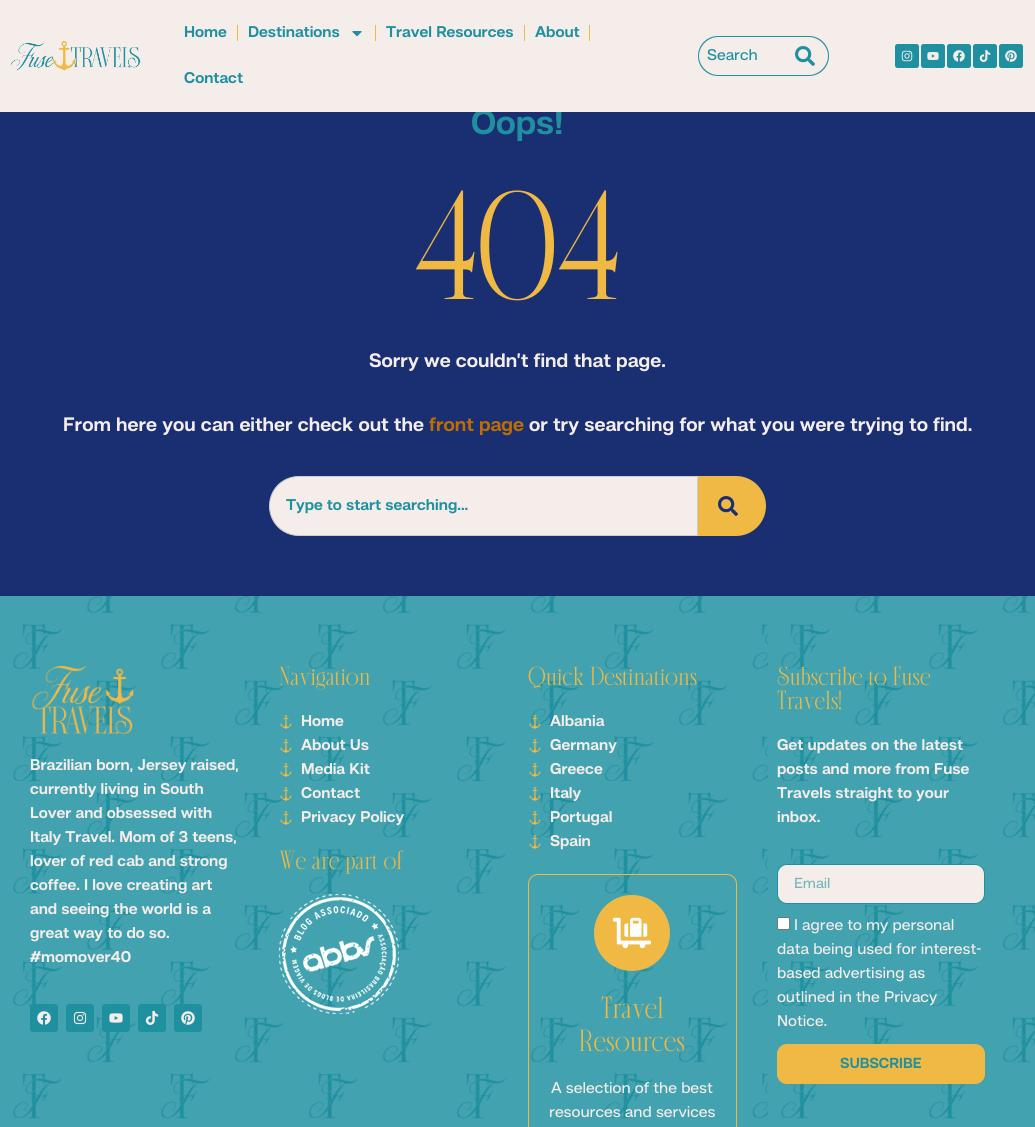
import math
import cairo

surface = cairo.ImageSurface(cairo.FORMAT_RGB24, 1035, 1127)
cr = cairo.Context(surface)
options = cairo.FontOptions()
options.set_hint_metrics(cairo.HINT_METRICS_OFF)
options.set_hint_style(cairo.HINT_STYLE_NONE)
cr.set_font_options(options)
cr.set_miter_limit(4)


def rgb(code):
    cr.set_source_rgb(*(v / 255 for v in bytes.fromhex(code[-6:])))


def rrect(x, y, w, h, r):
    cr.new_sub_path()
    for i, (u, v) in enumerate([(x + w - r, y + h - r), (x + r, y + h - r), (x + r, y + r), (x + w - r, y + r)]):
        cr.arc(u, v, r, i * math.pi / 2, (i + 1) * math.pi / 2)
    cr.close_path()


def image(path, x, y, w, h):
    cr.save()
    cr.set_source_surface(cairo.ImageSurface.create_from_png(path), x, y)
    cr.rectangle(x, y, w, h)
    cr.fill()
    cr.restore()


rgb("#192f72")
cr.paint()
rgb("#f5edea")
cr.new_path()
cr.move_to(299, 476.5)
cr.line_to(697.5, 476.5)
cr.line_to(697.5, 535.5)
cr.line_to(299, 535.5)
cr.curve_to(282.5, 535.5, 269.5, 522.5, 269.5, 506)
cr.curve_to(269.5, 489.5, 282.5, 476.5, 299, 476.5)
cr.close_path()
cr.fill_preserve()
rgb("#cdcdcd")
cr.set_line_width(1)
cr.stroke()
rgb("#f0b944")
cr.new_path()
cr.move_to(698, 476)
cr.line_to(736, 476)
cr.curve_to(752.5, 476, 766, 489.5, 766, 506)
cr.curve_to(766, 522.5, 752.5, 536, 736, 536)
cr.line_to(698, 536)
cr.close_path()
cr.fill()
image("img/9.png", 718, 496, 20, 20)
rgb("#43a2af")
cr.rectangle(0, 596, 1035, 531)
cr.fill()
image("img/10.png", 13, 596, 1022, 523)
image("img/11.png", 31, 666, 103, 68)
rgb("#1f90a0")
rrect(30, 1004, 28, 28, 3)
cr.fill()
image("img/12.png", 37, 1011, 14, 14)
rrect(66, 1004, 28, 28, 3)
cr.fill()
image("img/13.png", 73, 1011, 14, 14)
rrect(102, 1004, 28, 28, 3)
cr.fill()
image("img/14.png", 109, 1013, 14, 10)
rrect(138, 1004, 28, 28, 3)
cr.fill()
image("img/15.png", 145, 1011, 14, 14)
rrect(174, 1004, 28, 28, 3)
cr.fill()
image("img/16.png", 181, 1011, 14, 14)
image("img/17.png", 280, 715, 12, 14)
image("img/17.png", 280, 739, 12, 14)
image("img/17.png", 280, 763, 12, 14)
image("img/18.png", 280, 787, 12, 14)
image("img/17.png", 280, 811, 12, 14)
image("img/19.png", 279, 894, 120, 120)
image("img/20.png", 529, 715, 12, 14)
image("img/17.png", 529, 739, 12, 14)
image("img/17.png", 529, 763, 12, 14)
image("img/21.png", 529, 787, 12, 14)
image("img/22.png", 529, 811, 12, 14)
image("img/23.png", 529, 835, 12, 14)
rrect(528.5, 874.5, 208, 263, 9.5)
rgb("#f0b944")
cr.stroke()
cr.arc(632, 933, 38, 0, 2 * math.pi)
cr.fill()
image("img/24.png", 613, 917, 38, 32)
rgb("#f5edea")
rrect(777.5, 864.5, 207, 39, 9.5)
cr.fill_preserve()
rgb("#1f90a0")
cr.stroke()
rgb("#ffffff")
rrect(777.5, 917.5, 12, 12, 1.5)
cr.fill_preserve()
rgb("#767676")
cr.stroke()
rgb("#f0b944")
rrect(777, 1044, 208, 40, 10)
cr.fill()
cr.select_font_face("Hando", cairo.FONT_SLANT_NORMAL, cairo.FONT_WEIGHT_BOLD)
cr.set_font_size(35)
rgb("#1f90a0")
cr.move_to(471, 134)
cr.show_text("Oops!")
rgb("#f5edea")
cr.rectangle(0, 0, 1035, 112)
cr.fill()
cr.set_font_size(16)
rgb("#1f90a0")
cr.move_to(184, 83)
cr.show_text("Contact")
cr.move_to(535, 37)
cr.show_text("About")
rgb("#f0b944")
cr.rectangle(589, 25, 1, 16)
cr.fill()
rgb("#1f90a0")
cr.move_to(386, 37)
cr.show_text("Travel Resources")
rgb("#f0b944")
cr.rectangle(524, 25, 1, 16)
cr.fill()
image("img/2.png", 352, 31, 10, 6)
rgb("#1f90a0")
cr.move_to(248, 37)
cr.show_text("Destinations")
rgb("#f0b944")
cr.rectangle(375, 25, 1, 16)
cr.fill()
rgb("#1f90a0")
cr.move_to(184, 37)
cr.show_text("Home")
rgb("#f0b944")
cr.rectangle(237, 25, 1, 16)
cr.fill()
rgb("#1f90a0")
rrect(999, 44, 24, 24, 2.5)
cr.fill()
image("img/8.png", 1005, 50, 12, 12)
rrect(973, 44, 24, 24, 2.5)
cr.fill()
image("img/7.png", 979, 50, 12, 12)
rrect(947, 44, 24, 24, 2.5)
cr.fill()
image("img/6.png", 953, 50, 12, 12)
rrect(921, 44, 24, 24, 2.5)
cr.fill()
image("img/5.png", 927, 52, 12, 8)
rrect(895, 44, 24, 24, 2.5)
cr.fill()
image("img/4.png", 901, 50, 12, 12)
cr.set_fill_rule(cairo.FILL_RULE_EVEN_ODD)
cr.new_path()
cr.move_to(718, 36)
cr.line_to(790, 36)
cr.line_to(790, 76)
cr.line_to(718, 76)
cr.curve_to(707, 76, 698, 67, 698, 56)
cr.curve_to(698, 45, 707, 36, 718, 36)
cr.close_path()
cr.move_to(718, 37)
cr.line_to(790, 37)
cr.line_to(790, 75)
cr.line_to(718, 75)
cr.curve_to(708, 75, 699, 66, 699, 56)
cr.curve_to(699, 46, 708, 37, 718, 37)
cr.close_path()
cr.fill()
cr.select_font_face("Hando Medium")
cr.move_to(707, 60)
cr.show_text("Search")
cr.new_path()
cr.move_to(790, 36)
cr.line_to(809, 36)
cr.curve_to(820, 36, 829, 45, 829, 56)
cr.curve_to(829, 67, 820, 76, 809, 76)
cr.line_to(790, 76)
cr.close_path()
cr.move_to(790, 37)
cr.line_to(809, 37)
cr.curve_to(819, 37, 828, 46, 828, 56)
cr.curve_to(828, 66, 819, 75, 809, 75)
cr.line_to(790, 75)
cr.close_path()
cr.fill()
image("img/3.png", 795, 46, 20, 20)
image("img/1.png", 10, 41, 131, 30)
cr.select_font_face("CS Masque")
cr.set_font_size(141)
rgb("#f0b944")
cr.move_to(415, 299)
cr.show_text("404")
cr.select_font_face("Hando", cairo.FONT_SLANT_NORMAL, cairo.FONT_WEIGHT_BOLD)
cr.set_font_size(20)
rgb("#f5edea")
cr.move_to(369, 367)
cr.show_text("Sorry we couldn’t find that page.")
cr.move_to(63, 431)
cr.show_text("From here you can either check out the")
rgb("#be6d02")
cr.move_to(429, 431)
cr.show_text("front page")
rgb("#f5edea")
cr.move_to(529, 431)
cr.show_text("or try searching for what you were trying to find.")
cr.set_font_size(16)
rgb("#1f90a0")
cr.move_to(286, 510)
cr.show_text("Type to start searching...")
rgb("#f5edea")
for x, y, s in [
    (30, 770, "Brazilian born, Jersey raised,"),
    (30, 794, "currently living in South"),
    (30, 818, "Lover and obsessed with"),
    (30, 842, "Italy Travel. Mom of 3 teens,"),
    (30, 866, "lover of red cab and strong"),
    (30, 890, "coffee. I love creating art"),
    (30, 914, "and seeing the world is a"),
    (30, 938, "great way to do so."),
    (30, 962, "#momover40"),
]:
    cr.move_to(x, y)
    cr.show_text(s)
cr.select_font_face("CS Masque")
cr.set_font_size(24)
rgb("#f0b944")
cr.move_to(279, 685)
cr.show_text("Navigation")
cr.select_font_face("Hando", cairo.FONT_SLANT_NORMAL, cairo.FONT_WEIGHT_BOLD)
cr.set_font_size(16)
rgb("#f5edea")
for x, y, s in [
    (301, 726, "Home"),
    (301, 750, "About Us"),
    (301, 774, "Media Kit"),
    (301, 798, "Contact"),
    (301, 822, "Privacy Policy"),
]:
    cr.move_to(x, y)
    cr.show_text(s)
cr.select_font_face("CS Masque")
cr.set_font_size(24)
rgb("#f0b944")
cr.move_to(279, 869)
cr.show_text("We are part of")
cr.move_to(528, 685)
cr.show_text("Quick Destinations")
cr.select_font_face("Hando", cairo.FONT_SLANT_NORMAL, cairo.FONT_WEIGHT_BOLD)
cr.set_font_size(16)
rgb("#f5edea")
for x, y, s in [
    (550, 726, "Albania"),
    (550, 750, "Germany"),
    (550, 774, "Greece"),
    (550, 798, "Italy"),
    (550, 822, "Portugal"),
    (550, 846, "Spain"),
]:
    cr.move_to(x, y)
    cr.show_text(s)
cr.select_font_face("CS Masque")
cr.set_font_size(28)
rgb("#f0b944")
cr.move_to(601, 1018)
cr.show_text("Travel")
cr.move_to(579, 1051)
cr.show_text("Resources")
cr.select_font_face("Hando Medium")
cr.set_font_size(16)
rgb("#f5edea")
cr.move_to(551, 1093)
cr.show_text("A selection of the best")
cr.move_to(549, 1117)
cr.show_text("resources and services")
cr.select_font_face("CS Masque")
cr.set_font_size(24)
rgb("#f0b944")
cr.move_to(777, 685)
cr.show_text("Subscribe to Fuse")
cr.move_to(777, 709)
cr.show_text("Travels!")
cr.select_font_face("Hando", cairo.FONT_SLANT_NORMAL, cairo.FONT_WEIGHT_BOLD)
cr.set_font_size(16)
rgb("#f5edea")
for x, y, s in [
    (777, 750, "Get updates on the latest"),
    (777, 774, "posts and more from Fuse"),
    (777, 798, "Travels straight to your"),
    (777, 822, "inbox."),
]:
    cr.move_to(x, y)
    cr.show_text(s)
cr.select_font_face("Hando Medium")
cr.set_font_size(15)
rgb("#75b5be")
cr.move_to(794, 888)
cr.show_text("Email")
cr.set_font_size(16)
rgb("#f5edea")
for x, y, s in [
    (794, 930, "I agree to my personal"),
    (777, 954, "data being used for interest-"),
    (777, 978, "based advertising as"),
    (777, 1002, "outlined in the Privacy"),
    (777, 1026, "Notice."),
]:
    cr.move_to(x, y)
    cr.show_text(s)
cr.select_font_face("Hando", cairo.FONT_SLANT_NORMAL, cairo.FONT_WEIGHT_BOLD)
cr.set_font_size(15)
rgb("#1f90a0")
cr.move_to(840, 1068)
cr.show_text("SUBSCRIBE")
surface.write_to_png("page.png")
